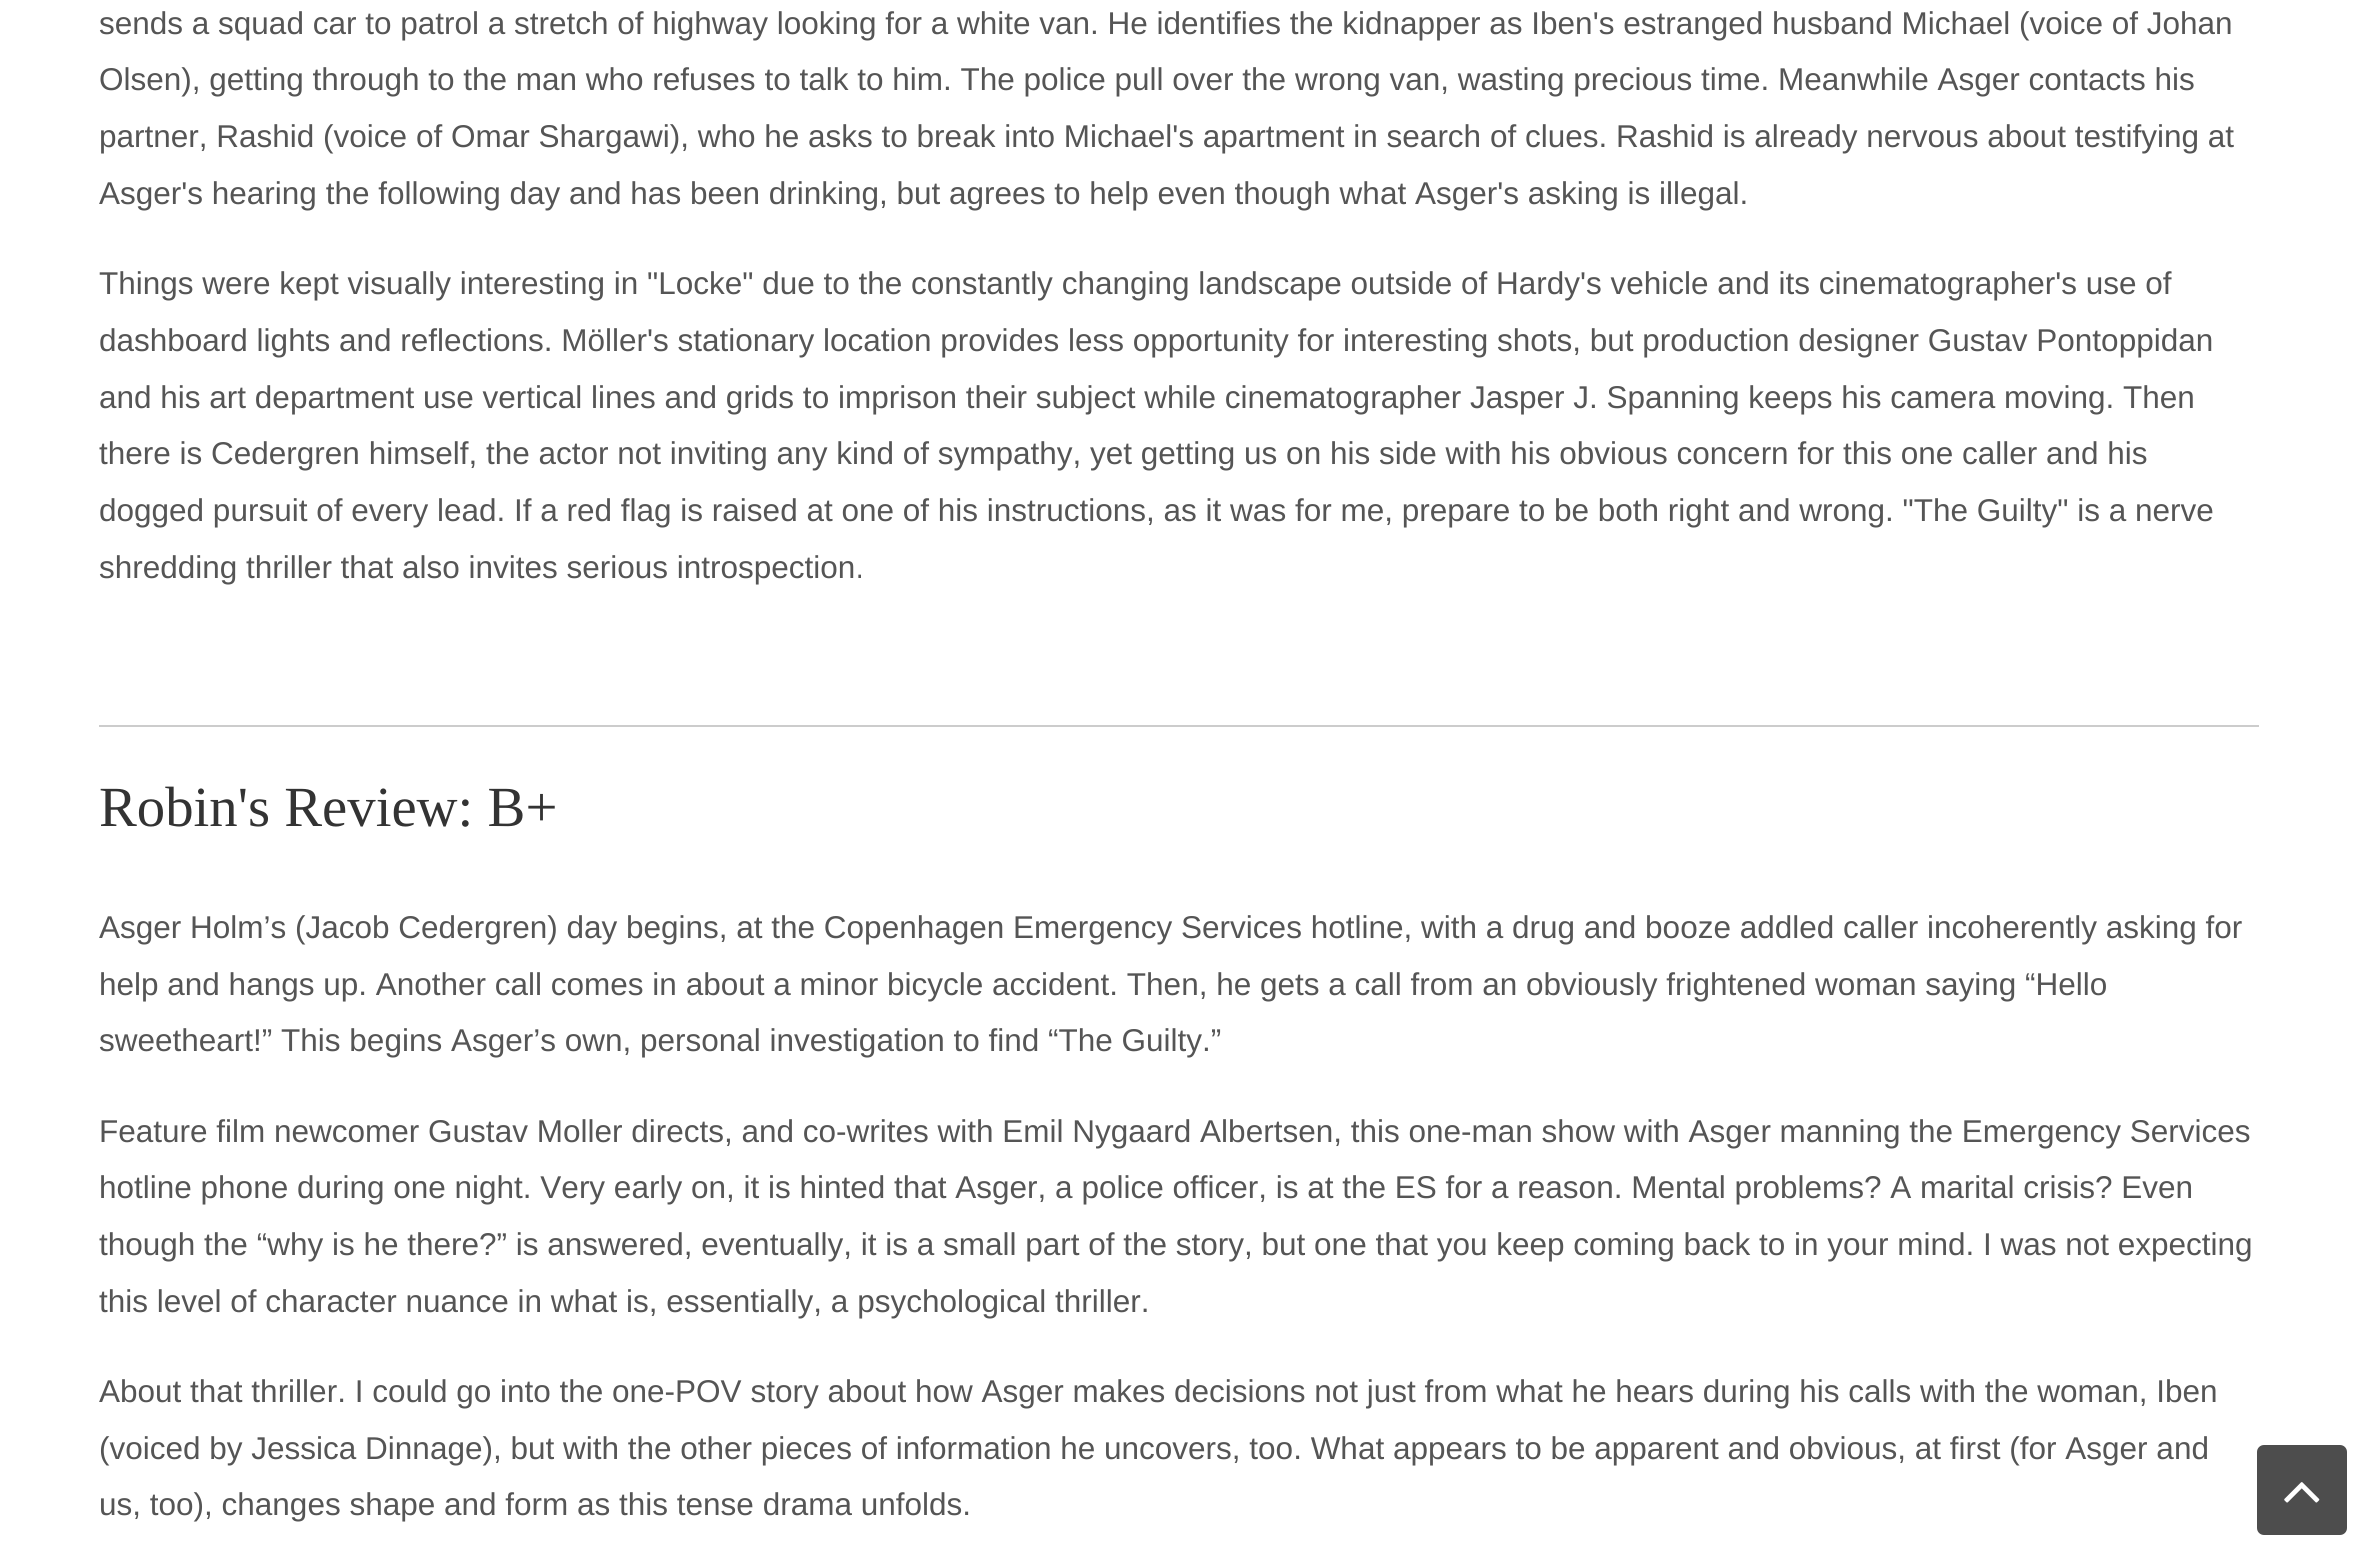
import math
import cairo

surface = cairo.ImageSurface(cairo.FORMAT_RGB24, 2356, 1545)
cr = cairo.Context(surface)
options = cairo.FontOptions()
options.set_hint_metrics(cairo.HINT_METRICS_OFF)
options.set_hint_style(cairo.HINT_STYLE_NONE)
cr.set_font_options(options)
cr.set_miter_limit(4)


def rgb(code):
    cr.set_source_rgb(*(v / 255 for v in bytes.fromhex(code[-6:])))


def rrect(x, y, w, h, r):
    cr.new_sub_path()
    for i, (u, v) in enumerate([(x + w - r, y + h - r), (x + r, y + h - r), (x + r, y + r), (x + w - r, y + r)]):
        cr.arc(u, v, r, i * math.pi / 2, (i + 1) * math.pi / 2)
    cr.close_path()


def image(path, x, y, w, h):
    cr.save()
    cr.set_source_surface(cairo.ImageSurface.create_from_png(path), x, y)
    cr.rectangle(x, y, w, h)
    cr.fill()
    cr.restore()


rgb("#ffffff")
cr.paint()
rgb("#cccccc")
cr.rectangle(99, 725, 2160, 2)
cr.fill()
rgb("#4d4d4d")
rrect(2257, 1445, 90, 90, 7)
cr.fill()
image("img/1.png", 2284, 1482, 36, 21)
cr.select_font_face("Liberation Sans")
cr.set_font_size(31.5)
rgb("#555555")
for x, y, s in [
    (99, 34, "sends a squad car to patrol a stretch of highway looking for a white van. He identifies the kidnapper as Iben's estranged husband Michael (voice of Johan"),
    (99, 90, "Olsen), getting through to the man who refuses to talk to him. The police pull over the wrong van, wasting precious time. Meanwhile Asger contacts his"),
    (99, 147, "partner, Rashid (voice of Omar Shargawi), who he asks to break into Michael's apartment in search of clues. Rashid is already nervous about testifying at"),
    (99, 204, "Asger's hearing the following day and has been drinking, but agrees to help even though what Asger's asking is illegal."),
    (99, 294, "Things were kept visually interesting in \"Locke\" due to the constantly changing landscape outside of Hardy's vehicle and its cinematographer's use of"),
    (99, 351, "dashboard lights and reflections. Möller's stationary location provides less opportunity for interesting shots, but production designer Gustav Pontoppidan"),
    (99, 408, "and his art department use vertical lines and grids to imprison their subject while cinematographer Jasper J. Spanning keeps his camera moving. Then"),
    (99, 464, "there is Cedergren himself, the actor not inviting any kind of sympathy, yet getting us on his side with his obvious concern for this one caller and his"),
    (99, 521, "dogged pursuit of every lead. If a red flag is raised at one of his instructions, as it was for me, prepare to be both right and wrong. \"The Guilty\" is a nerve"),
    (99, 578, "shredding thriller that also invites serious introspection."),
]:
    cr.move_to(x, y)
    cr.show_text(s)
cr.select_font_face("Liberation Serif")
cr.set_font_size(56.75)
rgb("#333333")
cr.move_to(99, 826)
cr.show_text("Robin's Review: B+")
cr.select_font_face("Liberation Sans")
cr.set_font_size(31.5)
rgb("#555555")
for x, y, s in [
    (99, 938, "Asger Holm’s (Jacob Cedergren) day begins, at the Copenhagen Emergency Services hotline, with a drug and booze addled caller incoherently asking for"),
    (99, 995, "help and hangs up. Another call comes in about a minor bicycle accident. Then, he gets a call from an obviously frightened woman saying “Hello"),
    (99, 1051, "sweetheart!” This begins Asger’s own, personal investigation to find “The Guilty.”"),
    (99, 1142, "Feature film newcomer Gustav Moller directs, and co-writes with Emil Nygaard Albertsen, this one-man show with Asger manning the Emergency Services"),
    (99, 1198, "hotline phone during one night. Very early on, it is hinted that Asger, a police officer, is at the ES for a reason. Mental problems? A marital crisis? Even"),
    (99, 1255, "though the “why is he there?” is answered, eventually, it is a small part of the story, but one that you keep coming back to in your mind. I was not expecting"),
    (99, 1312, "this level of character nuance in what is, essentially, a psychological thriller."),
    (99, 1402, "About that thriller. I could go into the one-POV story about how Asger makes decisions not just from what he hears during his calls with the woman, Iben"),
    (99, 1459, "(voiced by Jessica Dinnage), but with the other pieces of information he uncovers, too. What appears to be apparent and obvious, at first (for Asger and"),
    (99, 1515, "us, too), changes shape and form as this tense drama unfolds."),
]:
    cr.move_to(x, y)
    cr.show_text(s)
surface.write_to_png("page.png")
